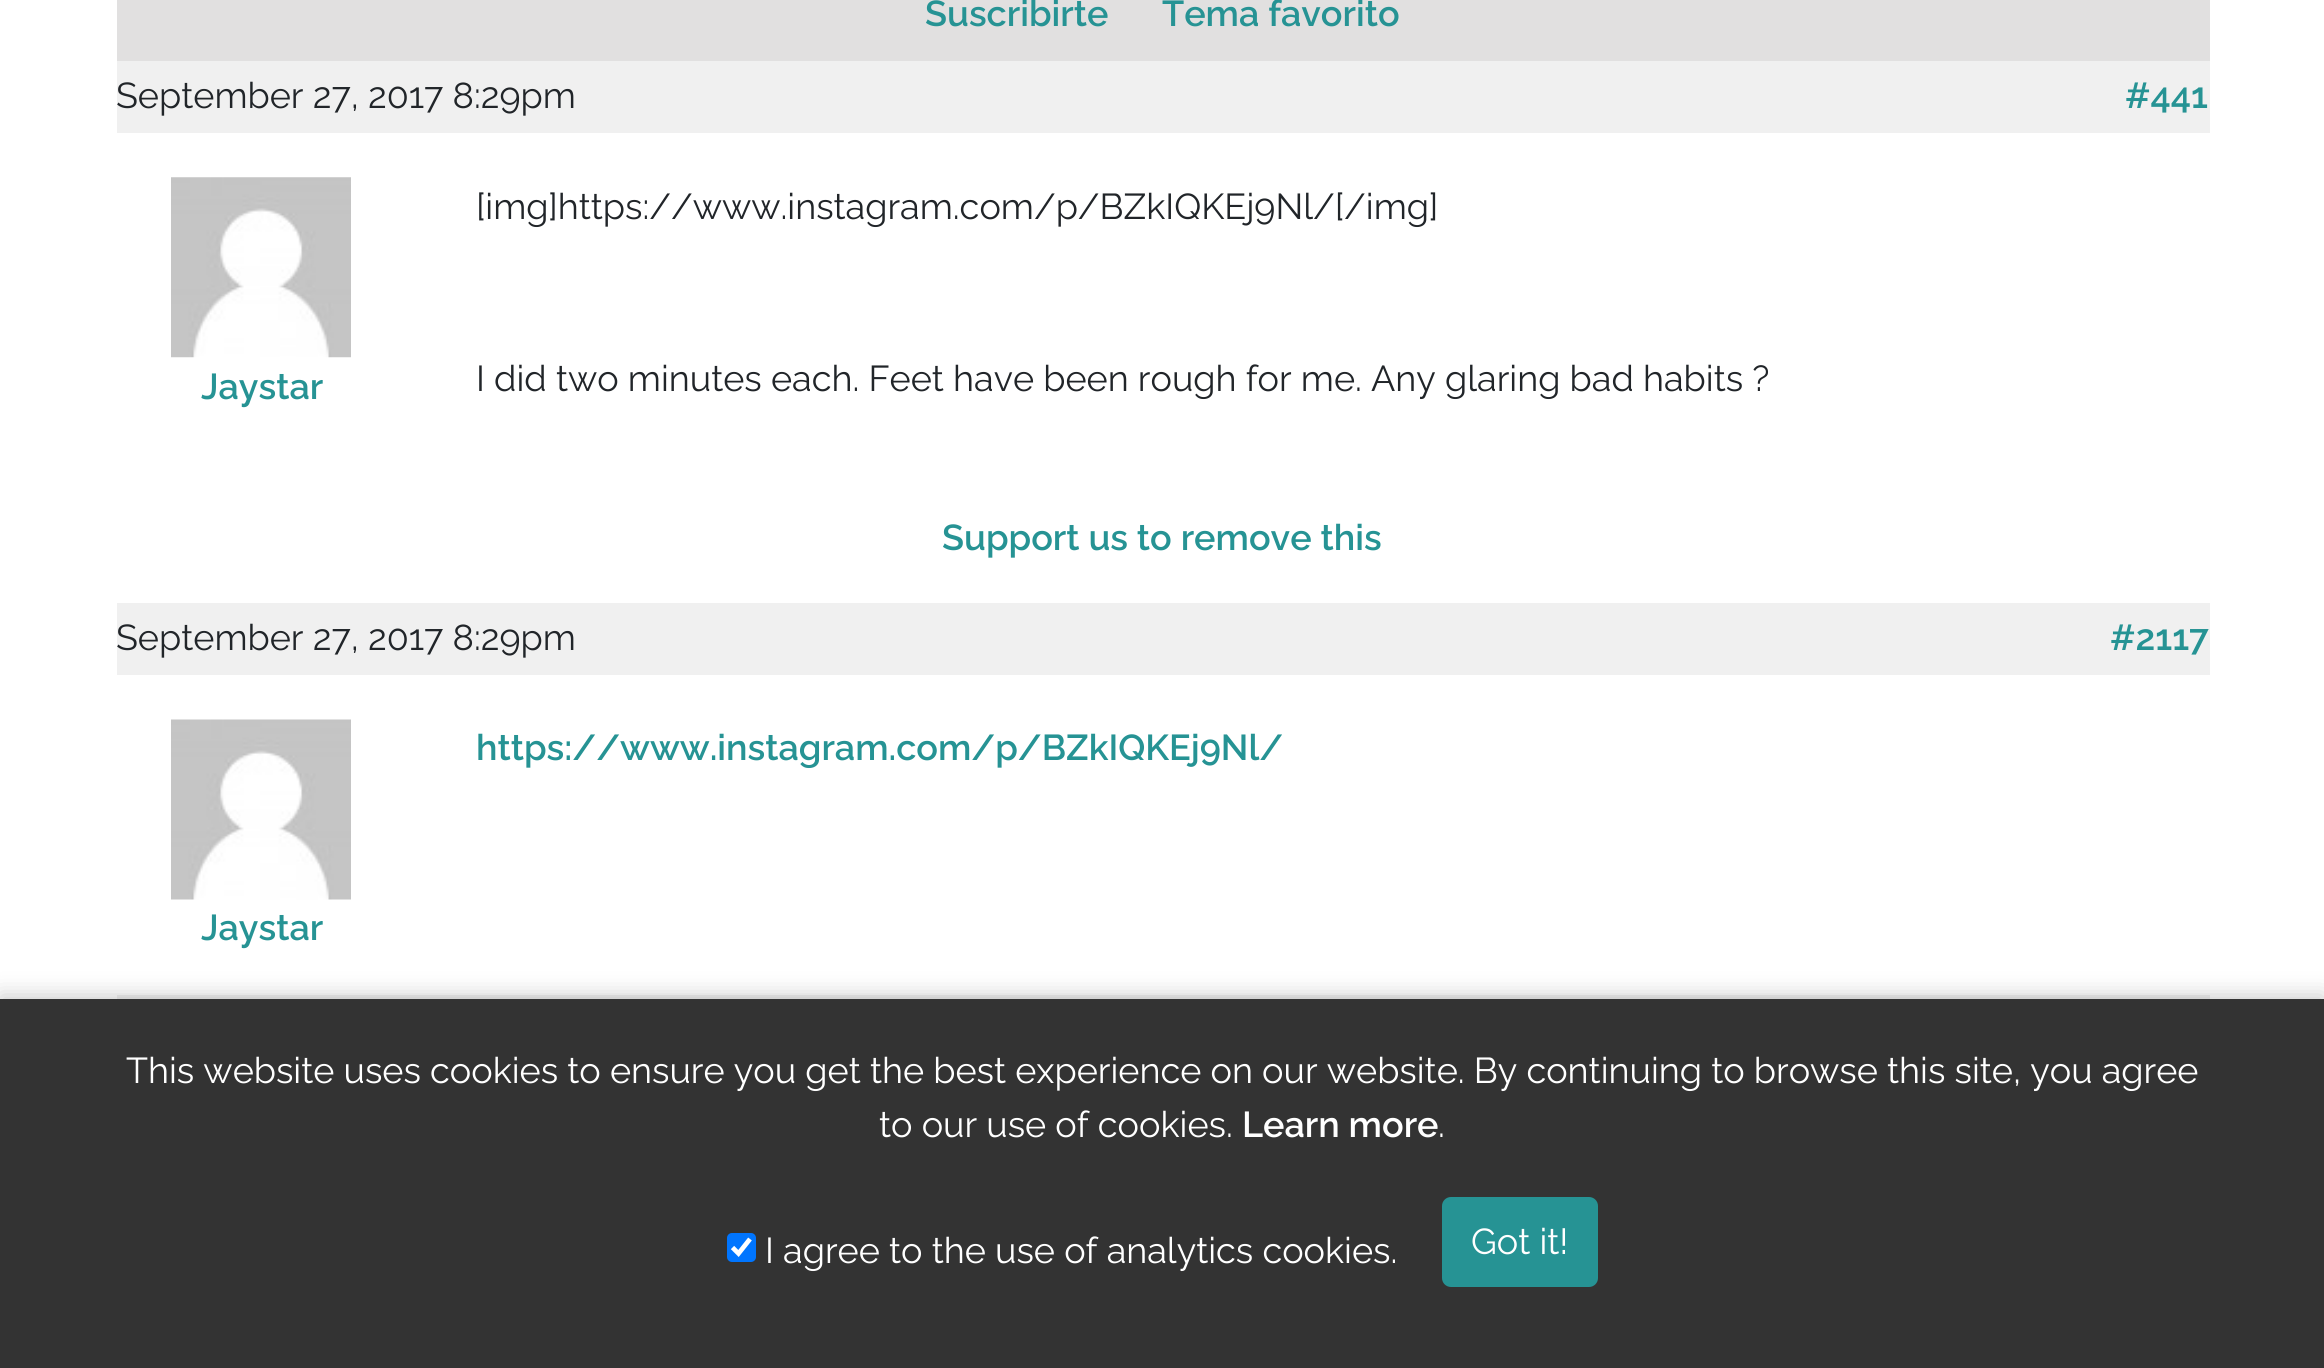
import math
import cairo

surface = cairo.ImageSurface(cairo.FORMAT_RGB24, 2324, 1368)
cr = cairo.Context(surface)
options = cairo.FontOptions()
options.set_hint_metrics(cairo.HINT_METRICS_OFF)
options.set_hint_style(cairo.HINT_STYLE_NONE)
cr.set_font_options(options)
cr.set_miter_limit(4)


def rgb(code):
    cr.set_source_rgb(*(v / 255 for v in bytes.fromhex(code[-6:])))


def rrect(x, y, w, h, r):
    cr.new_sub_path()
    for i, (u, v) in enumerate([(x + w - r, y + h - r), (x + r, y + h - r), (x + r, y + r), (x + w - r, y + r)]):
        cr.arc(u, v, r, i * math.pi / 2, (i + 1) * math.pi / 2)
    cr.close_path()


def soft_shadow(x, y, w, h, r, blur, alpha):
    cr.push_group_with_content(cairo.CONTENT_ALPHA)
    cr.set_operator(cairo.OPERATOR_SOURCE)
    for i in range(15, -16, -2):
        e = blur * i / 6
        if min(w, h) + 2 * e > 0:
            cr.set_source_rgba(0, 0, 0, alpha * math.erfc((i - 1) / 8.5) / 2)
            rrect(x - e, y - e, w + 2 * e, h + 2 * e, max(0, min(r + e + blur * .6, min(w, h) / 2 + e)))
            cr.fill()
    cr.mask(cr.pop_group())


def image(path, x, y, w, h):
    cr.save()
    cr.set_source_surface(cairo.ImageSurface.create_from_png(path), x, y)
    cr.rectangle(x, y, w, h)
    cr.fill()
    cr.restore()


rgb("#ffffff")
cr.paint()
rgb("#e1e0e0")
cr.rectangle(117, 0, 2093, 61)
cr.fill()
rgb("#f0f0f0")
cr.rectangle(117, 61, 2093, 72)
cr.fill()
image("img/1.png", 171, 177, 180, 181)
cr.rectangle(117, 603, 2093, 72)
cr.fill()
image("img/2.png", 171, 719, 180, 181)
cr.rectangle(117, 995, 2093, 4)
cr.fill()
rgb("#000000")
soft_shadow(0, 995, 2324, 369, 0, 11, 0.2)
rgb("#333333")
cr.rectangle(0, 999, 2324, 369)
cr.fill()
rgb("#0075ff")
rrect(727, 1233, 29, 29, 5)
cr.fill()
cr.new_path()
cr.move_to(732.5, 1247.5)
cr.line_to(738.5, 1253.5)
cr.line_to(750, 1239)
rgb("#ffffff")
cr.set_line_width(4.7)
cr.stroke()
rgb("#269394")
rrect(1443, 1198, 154, 88, 8)
cr.fill_preserve()
cr.set_line_width(2)
cr.stroke()
cr.select_font_face("Raleway SemiBold")
cr.set_font_size(36)
cr.move_to(925, 26)
cr.show_text("Suscribirte")
cr.move_to(1162, 26)
cr.show_text("Tema favorito")
cr.select_font_face("Raleway")
rgb("#212529")
cr.move_to(116, 108)
cr.show_text("September 27, 2017 8:29pm")
cr.select_font_face("Raleway SemiBold")
rgb("#269394")
cr.move_to(2125, 108)
cr.show_text("#441")
cr.move_to(201, 399)
cr.show_text("Jaystar")
cr.select_font_face("Raleway")
rgb("#212529")
cr.move_to(476, 219)
cr.show_text("[img]https://www.instagram.com/p/BZkIQKEj9Nl/[/img]")
cr.move_to(476, 391)
cr.show_text("I did two minutes each. Feet have been rough for me. Any glaring bad habits ?")
cr.select_font_face("Raleway SemiBold")
rgb("#269394")
cr.move_to(942, 550)
cr.show_text("Support us to remove this")
cr.select_font_face("Raleway")
rgb("#212529")
cr.move_to(116, 650)
cr.show_text("September 27, 2017 8:29pm")
cr.select_font_face("Raleway SemiBold")
rgb("#269394")
for x, y, s in [
    (2110, 650, "#2117"),
    (476, 760, "https://www.instagram.com/p/BZkIQKEj9Nl/"),
    (201, 940, "Jaystar"),
]:
    cr.move_to(x, y)
    cr.show_text(s)
cr.select_font_face("Raleway")
rgb("#ffffff")
cr.move_to(126, 1083)
cr.show_text("This website uses cookies to ensure you get the best experience on our website. By continuing to browse this site, you agree")
cr.move_to(879, 1137)
cr.show_text("to our use of cookies.")
cr.select_font_face("Raleway SemiBold")
cr.move_to(1242, 1137)
cr.show_text("Learn more")
cr.select_font_face("Raleway")
for x, y, s in [
    (1438, 1137, "."),
    (765, 1263, "I agree to the use of analytics cookies."),
    (1471, 1254, "Got it!"),
]:
    cr.move_to(x, y)
    cr.show_text(s)
surface.write_to_png("page.png")
